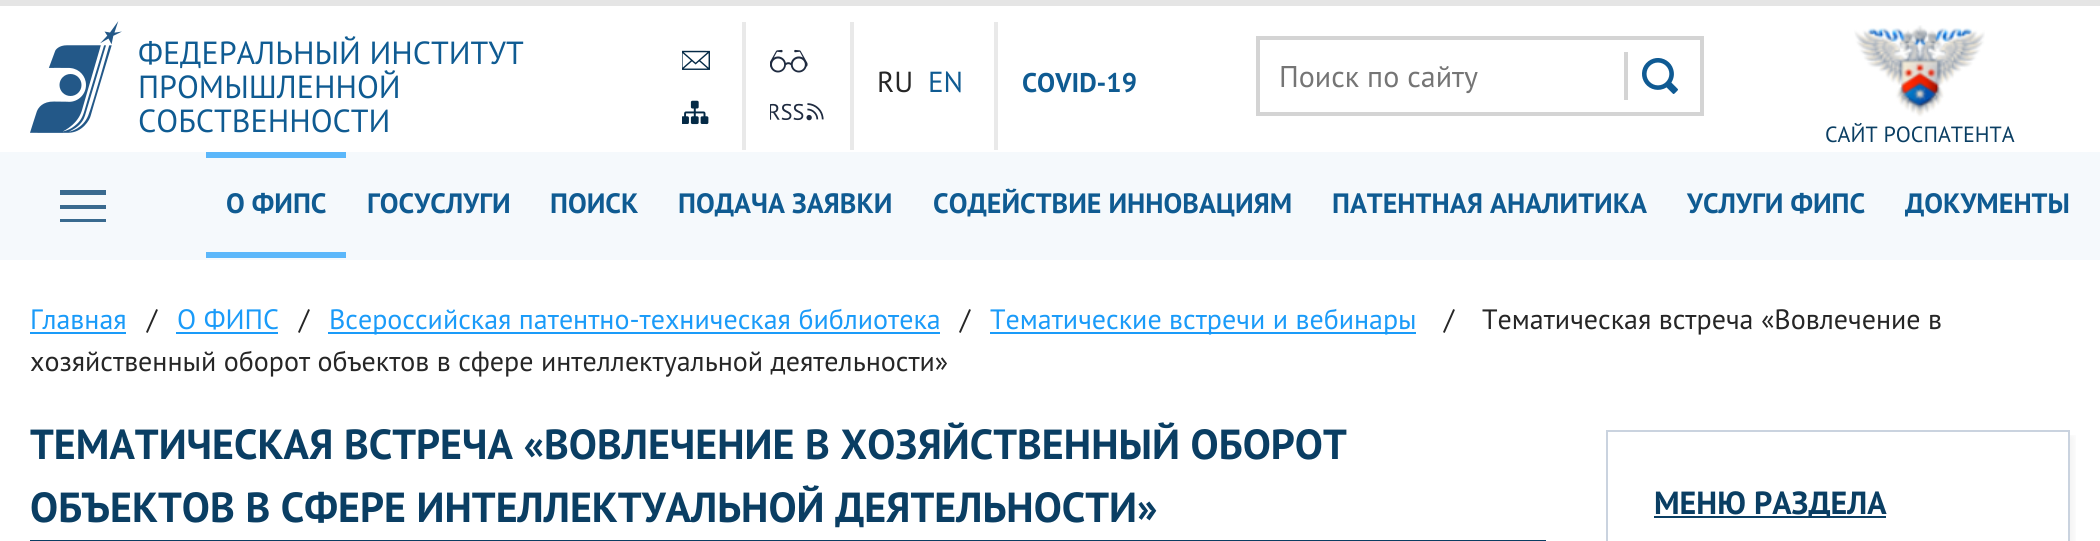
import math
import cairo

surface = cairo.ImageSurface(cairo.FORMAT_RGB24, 2100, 541)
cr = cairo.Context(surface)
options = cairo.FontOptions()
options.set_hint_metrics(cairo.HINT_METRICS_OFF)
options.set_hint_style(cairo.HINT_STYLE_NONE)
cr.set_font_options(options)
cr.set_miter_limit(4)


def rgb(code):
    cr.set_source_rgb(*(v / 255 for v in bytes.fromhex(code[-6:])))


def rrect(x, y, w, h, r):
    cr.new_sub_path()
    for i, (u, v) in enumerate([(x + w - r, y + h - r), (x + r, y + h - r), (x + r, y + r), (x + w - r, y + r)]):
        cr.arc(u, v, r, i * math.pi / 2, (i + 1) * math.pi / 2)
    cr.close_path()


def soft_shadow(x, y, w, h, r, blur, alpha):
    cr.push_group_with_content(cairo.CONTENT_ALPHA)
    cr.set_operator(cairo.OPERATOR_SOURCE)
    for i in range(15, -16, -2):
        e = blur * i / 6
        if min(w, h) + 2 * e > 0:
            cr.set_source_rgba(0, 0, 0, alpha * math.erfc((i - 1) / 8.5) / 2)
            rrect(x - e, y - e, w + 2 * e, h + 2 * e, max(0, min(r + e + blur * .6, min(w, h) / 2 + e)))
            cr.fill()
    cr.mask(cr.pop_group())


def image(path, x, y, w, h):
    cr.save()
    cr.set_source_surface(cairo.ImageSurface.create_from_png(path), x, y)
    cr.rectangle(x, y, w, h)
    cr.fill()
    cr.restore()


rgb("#ffffff")
cr.paint()
rgb("#e5e5e5")
cr.rectangle(0, 0, 2100, 6)
cr.fill()
image("img/1.png", 30, 21, 92, 112)
image("img/2.png", 682, 50, 28, 20)
image("img/3.png", 682, 100, 27, 25)
rgb("#e9e9e9")
cr.rectangle(742, 22, 4, 128)
cr.fill()
image("img/4.png", 770, 49, 38, 24)
image("img/5.png", 770, 103, 54, 18)
cr.rectangle(850, 22, 4, 128)
cr.fill()
cr.rectangle(994, 22, 4, 128)
cr.fill()
cr.rectangle(1258, 38, 444, 76)
rgb("#d4d4d4")
cr.set_line_width(4)
cr.stroke()
image("img/6.png", 1642, 58, 36, 36)
cr.rectangle(1624, 52, 4, 48)
cr.fill()
image("img/7.png", 1854, 25, 131, 92)
for x, y, w, h, color in [
    (0, 152, 2100, 108, "#f5f9fc"),
    (60, 219, 46, 3, "#396a8f"),
    (60, 205, 46, 4, "#396a8f"),
    (60, 190, 46, 5, "#396a8f"),
    (206, 152, 140, 6, "#5bb7fa"),
    (206, 252, 140, 6, "#5bb7fa"),
    (30, 332, 96, 2, "#1a9bf9"),
    (176, 332, 102, 2, "#1a9bf9"),
    (328, 332, 612, 2, "#1a9bf9"),
    (990, 332, 426, 2, "#1a9bf9"),
    (30, 540, 1516, 1, "#0a3e63"),
]:
    rgb(color)
    cr.rectangle(x, y, w, h)
    cr.fill()
cr.save()
cr.rectangle(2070, 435, 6, 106)
cr.clip()
rgb("#1a1f20")
soft_shadow(1610, 436, 464, 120, 0, 5, 0.06)
cr.restore()
cr.rectangle(1607, 431, 462, 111)
rgb("#cad3df")
cr.set_line_width(2)
cr.stroke()
rgb("#0a3e63")
cr.rectangle(1654, 516, 232, 2)
cr.fill()
cr.select_font_face("PT Sans")
cr.set_font_size(32)
rgb("#0f5b92")
for x, y, s in [
    (138, 64, "ФЕДЕРАЛЬНЫЙ ИНСТИТУТ"),
    (138, 98, "ПРОМЫШЛЕННОЙ"),
    (138, 132, "СОБСТВЕННОСТИ"),
]:
    cr.move_to(x, y)
    cr.show_text(s)
cr.set_font_size(29)
rgb("#262626")
cr.move_to(877, 92)
cr.show_text("RU")
rgb("#0f5b92")
cr.move_to(928, 92)
cr.show_text("EN")
cr.select_font_face("PT Sans", cairo.FONT_SLANT_NORMAL, cairo.FONT_WEIGHT_BOLD)
cr.set_font_size(27)
cr.move_to(1022, 92)
cr.show_text("СOVID-19")
cr.select_font_face("PT Sans")
cr.set_font_size(30)
rgb("#757575")
cr.move_to(1279, 87)
cr.show_text("Поиск по сайту")
cr.set_font_size(22)
rgb("#0a3e63")
cr.move_to(1825, 142)
cr.show_text("САЙТ РОСПАТЕНТА")
cr.select_font_face("PT Sans", cairo.FONT_SLANT_NORMAL, cairo.FONT_WEIGHT_BOLD)
cr.set_font_size(28)
rgb("#0f5b92")
for x, y, s in [
    (226, 213, "О ФИПС"),
    (367, 213, "ГОСУСЛУГИ"),
    (550, 213, "ПОИСК"),
    (678, 213, "ПОДАЧА ЗАЯВКИ"),
    (933, 213, "СОДЕЙСТВИЕ ИННОВАЦИЯМ"),
    (1332, 213, "ПАТЕНТНАЯ АНАЛИТИКА"),
    (1687, 213, "УСЛУГИ ФИПС"),
    (1905, 213, "ДОКУМЕНТЫ"),
]:
    cr.move_to(x, y)
    cr.show_text(s)
cr.select_font_face("PT Sans")
rgb("#1a9bf9")
cr.move_to(30, 329)
cr.show_text("Главная")
rgb("#262626")
cr.move_to(147, 329)
cr.show_text("/")
rgb("#1a9bf9")
cr.move_to(177, 329)
cr.show_text("О ФИПС")
rgb("#262626")
cr.move_to(299, 329)
cr.show_text("/")
rgb("#1a9bf9")
cr.move_to(329, 329)
cr.show_text("Всероссийская патентно-техническая библиотека")
rgb("#262626")
cr.move_to(960, 329)
cr.show_text("/")
rgb("#1a9bf9")
cr.move_to(990, 329)
cr.show_text("Тематические встречи и вебинары")
rgb("#262626")
for x, y, s in [
    (1444, 329, "/"),
    (1482, 329, "Тематическая встреча «Вовлечение в"),
    (30, 371, "хозяйственный оборот объектов в сфере интеллектуальной деятельности»"),
]:
    cr.move_to(x, y)
    cr.show_text(s)
cr.select_font_face("PT Sans", cairo.FONT_SLANT_NORMAL, cairo.FONT_WEIGHT_BOLD)
cr.set_font_size(42)
rgb("#0a3e63")
cr.move_to(30, 459)
cr.show_text("ТЕМАТИЧЕСКАЯ ВСТРЕЧА «ВОВЛЕЧЕНИЕ В ХОЗЯЙСТВЕННЫЙ ОБОРОТ")
cr.move_to(30, 522)
cr.show_text("ОБЪЕКТОВ В СФЕРЕ ИНТЕЛЛЕКТУАЛЬНОЙ ДЕЯТЕЛЬНОСТИ»")
cr.set_font_size(32)
cr.move_to(1654, 514)
cr.show_text("МЕНЮ РАЗДЕЛА")
surface.write_to_png("page.png")
